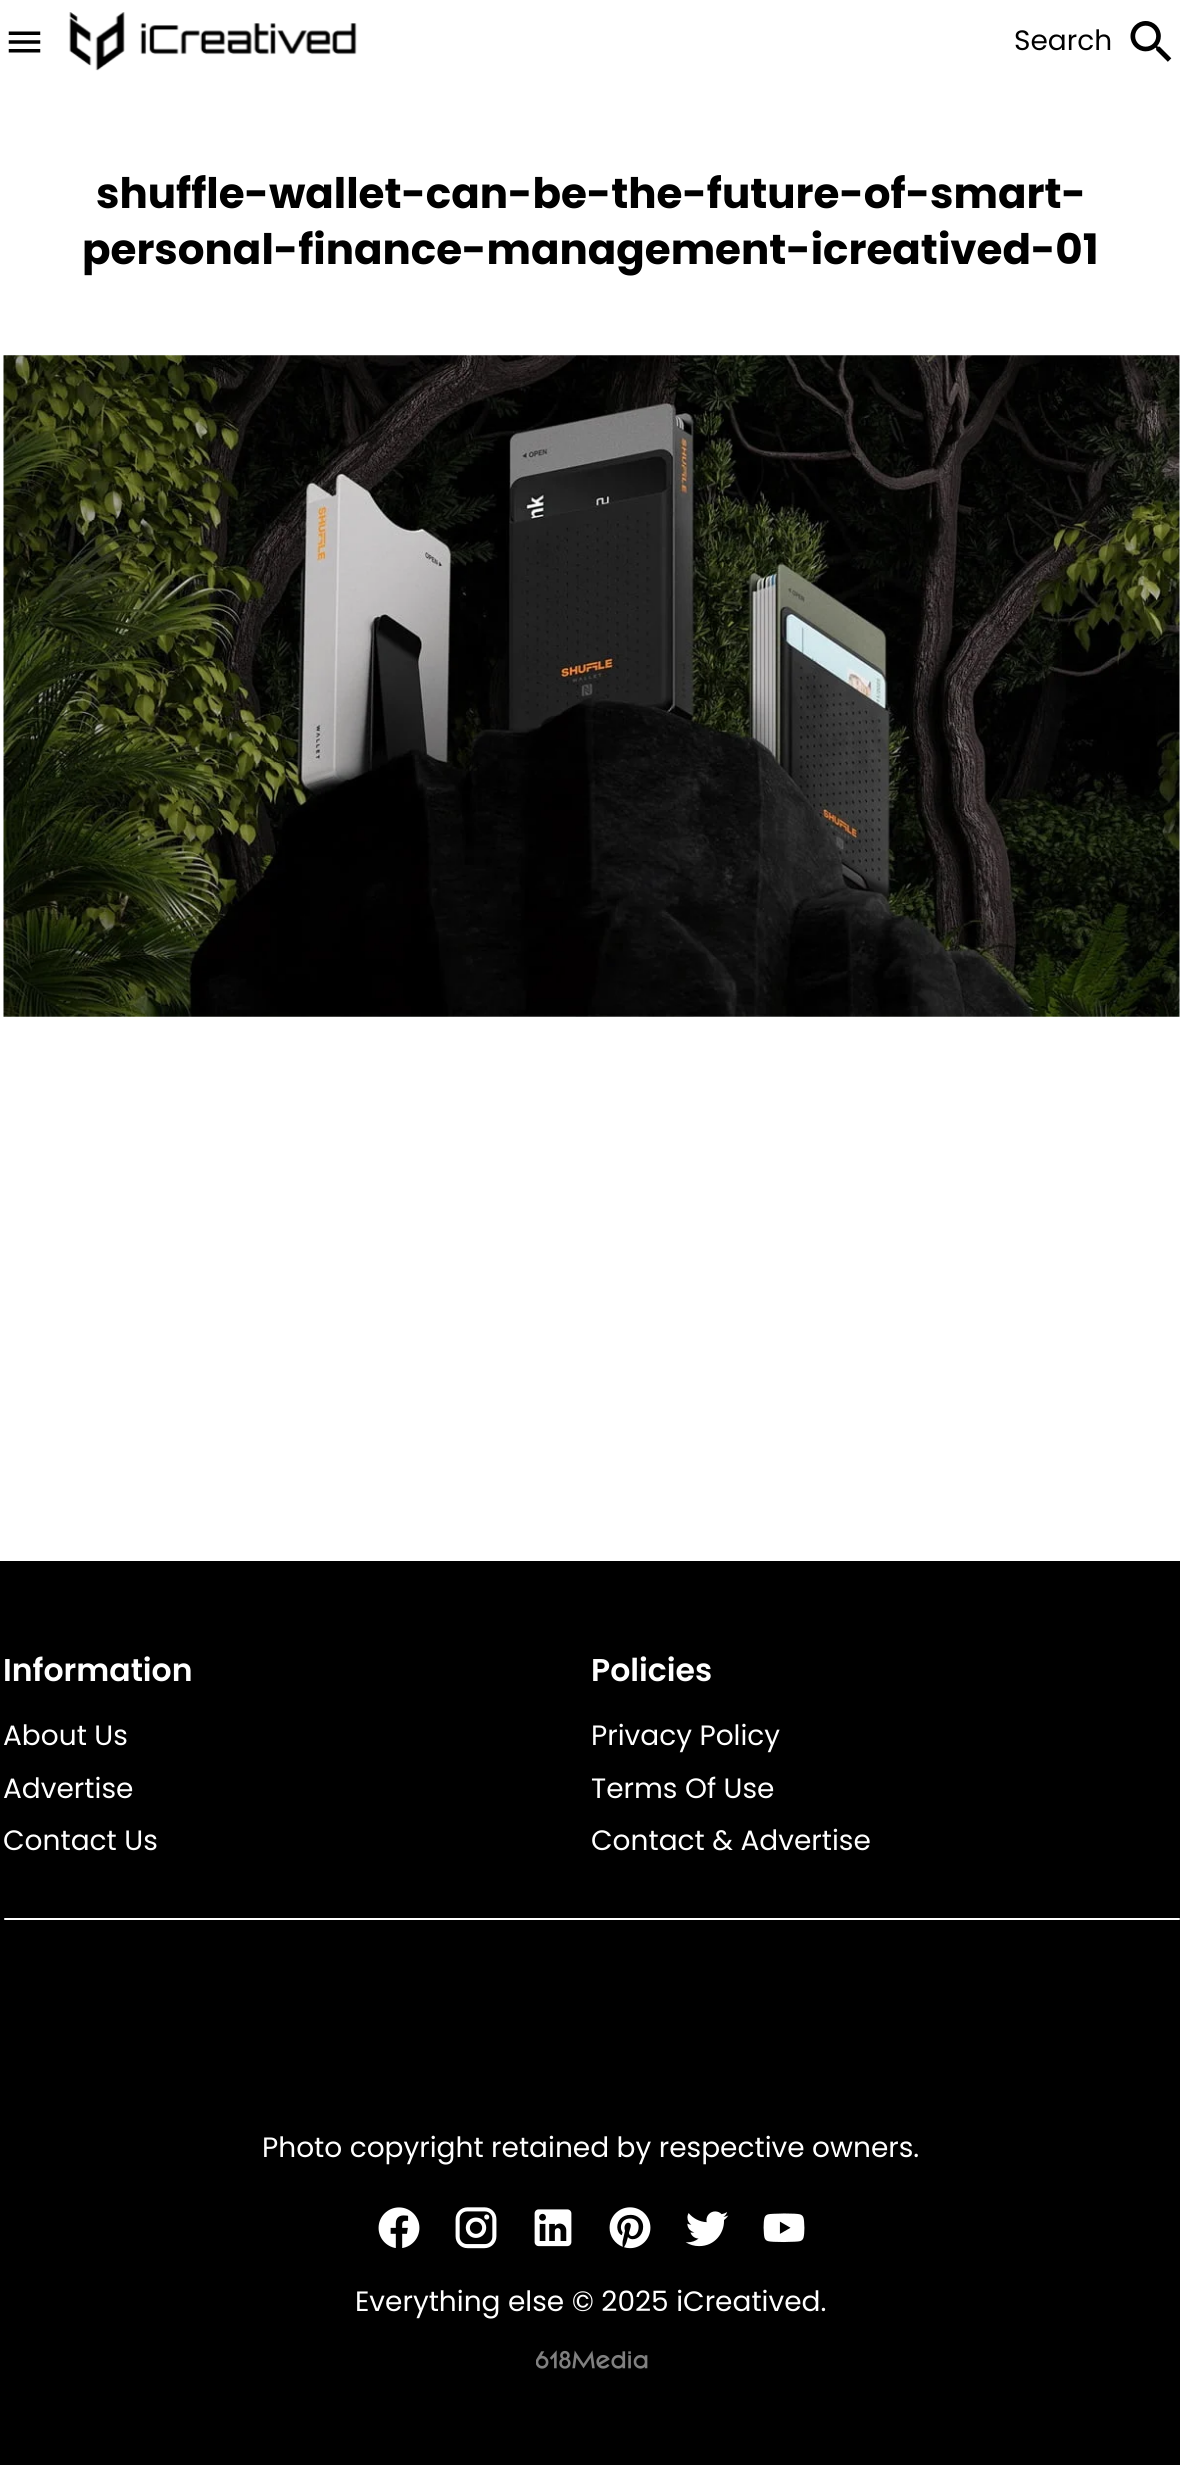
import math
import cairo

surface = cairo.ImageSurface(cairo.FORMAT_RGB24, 1180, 2465)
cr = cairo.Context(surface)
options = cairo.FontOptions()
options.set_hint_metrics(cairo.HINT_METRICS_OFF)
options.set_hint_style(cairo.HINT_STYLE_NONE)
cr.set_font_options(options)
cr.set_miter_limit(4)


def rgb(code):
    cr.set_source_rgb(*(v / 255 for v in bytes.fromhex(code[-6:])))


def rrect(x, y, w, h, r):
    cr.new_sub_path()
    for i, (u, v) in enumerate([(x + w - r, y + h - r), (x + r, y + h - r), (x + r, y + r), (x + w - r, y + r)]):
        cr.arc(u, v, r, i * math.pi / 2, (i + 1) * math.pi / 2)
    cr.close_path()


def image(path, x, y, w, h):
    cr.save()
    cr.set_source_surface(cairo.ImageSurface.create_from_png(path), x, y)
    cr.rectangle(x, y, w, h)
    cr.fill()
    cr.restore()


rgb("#ffffff")
cr.paint()
image("img/1.png", 8, 31, 33, 22)
image("img/2.png", 69, 12, 288, 59)
image("img/3.png", 1130, 21, 42, 41)
image("img/4.png", 3, 355, 1177, 662)
rgb("#000000")
cr.rectangle(0, 1561, 1180, 904)
cr.fill()
rgb("#ffffff")
rrect(4, 1918, 1176, 2, 1)
cr.fill()
image("img/5.png", 378, 2207, 42, 41)
image("img/6.png", 455, 2207, 42, 42)
image("img/7.png", 534, 2209, 38, 38)
image("img/8.png", 609, 2207, 42, 42)
image("img/9.png", 685, 2211, 44, 36)
image("img/10.png", 763, 2213, 42, 30)
image("img/11.png", 536, 2350, 112, 19)
cr.select_font_face("Poppins")
cr.set_font_size(28)
rgb("#000000")
cr.move_to(1014, 50)
cr.show_text("Search")
cr.select_font_face("Poppins", cairo.FONT_SLANT_NORMAL, cairo.FONT_WEIGHT_BOLD)
cr.set_font_size(42)
cr.move_to(96, 208)
cr.show_text("shuffle-wallet-can-be-the-future-of-smart-")
cr.move_to(82, 264)
cr.show_text("personal-finance-management-icreatived-01")
cr.select_font_face("Poppins SemiBold")
cr.set_font_size(31.5)
rgb("#ffffff")
cr.move_to(3, 1681)
cr.show_text("Information")
cr.select_font_face("Poppins")
cr.set_font_size(28)
for x, y, s in [
    (3, 1745, "About Us"),
    (3, 1798, "Advertise"),
    (3, 1850, "Contact Us"),
]:
    cr.move_to(x, y)
    cr.show_text(s)
cr.select_font_face("Poppins SemiBold")
cr.set_font_size(31.5)
cr.move_to(591, 1681)
cr.show_text("Policies")
cr.select_font_face("Poppins")
cr.set_font_size(28)
for x, y, s in [
    (591, 1745, "Privacy Policy"),
    (591, 1798, "Terms Of Use"),
    (591, 1850, "Contact & Advertise"),
    (262, 2157, "Photo copyright retained by respective owners."),
    (355, 2311, "Everything else © 2025 iCreatived."),
]:
    cr.move_to(x, y)
    cr.show_text(s)
surface.write_to_png("page.png")
